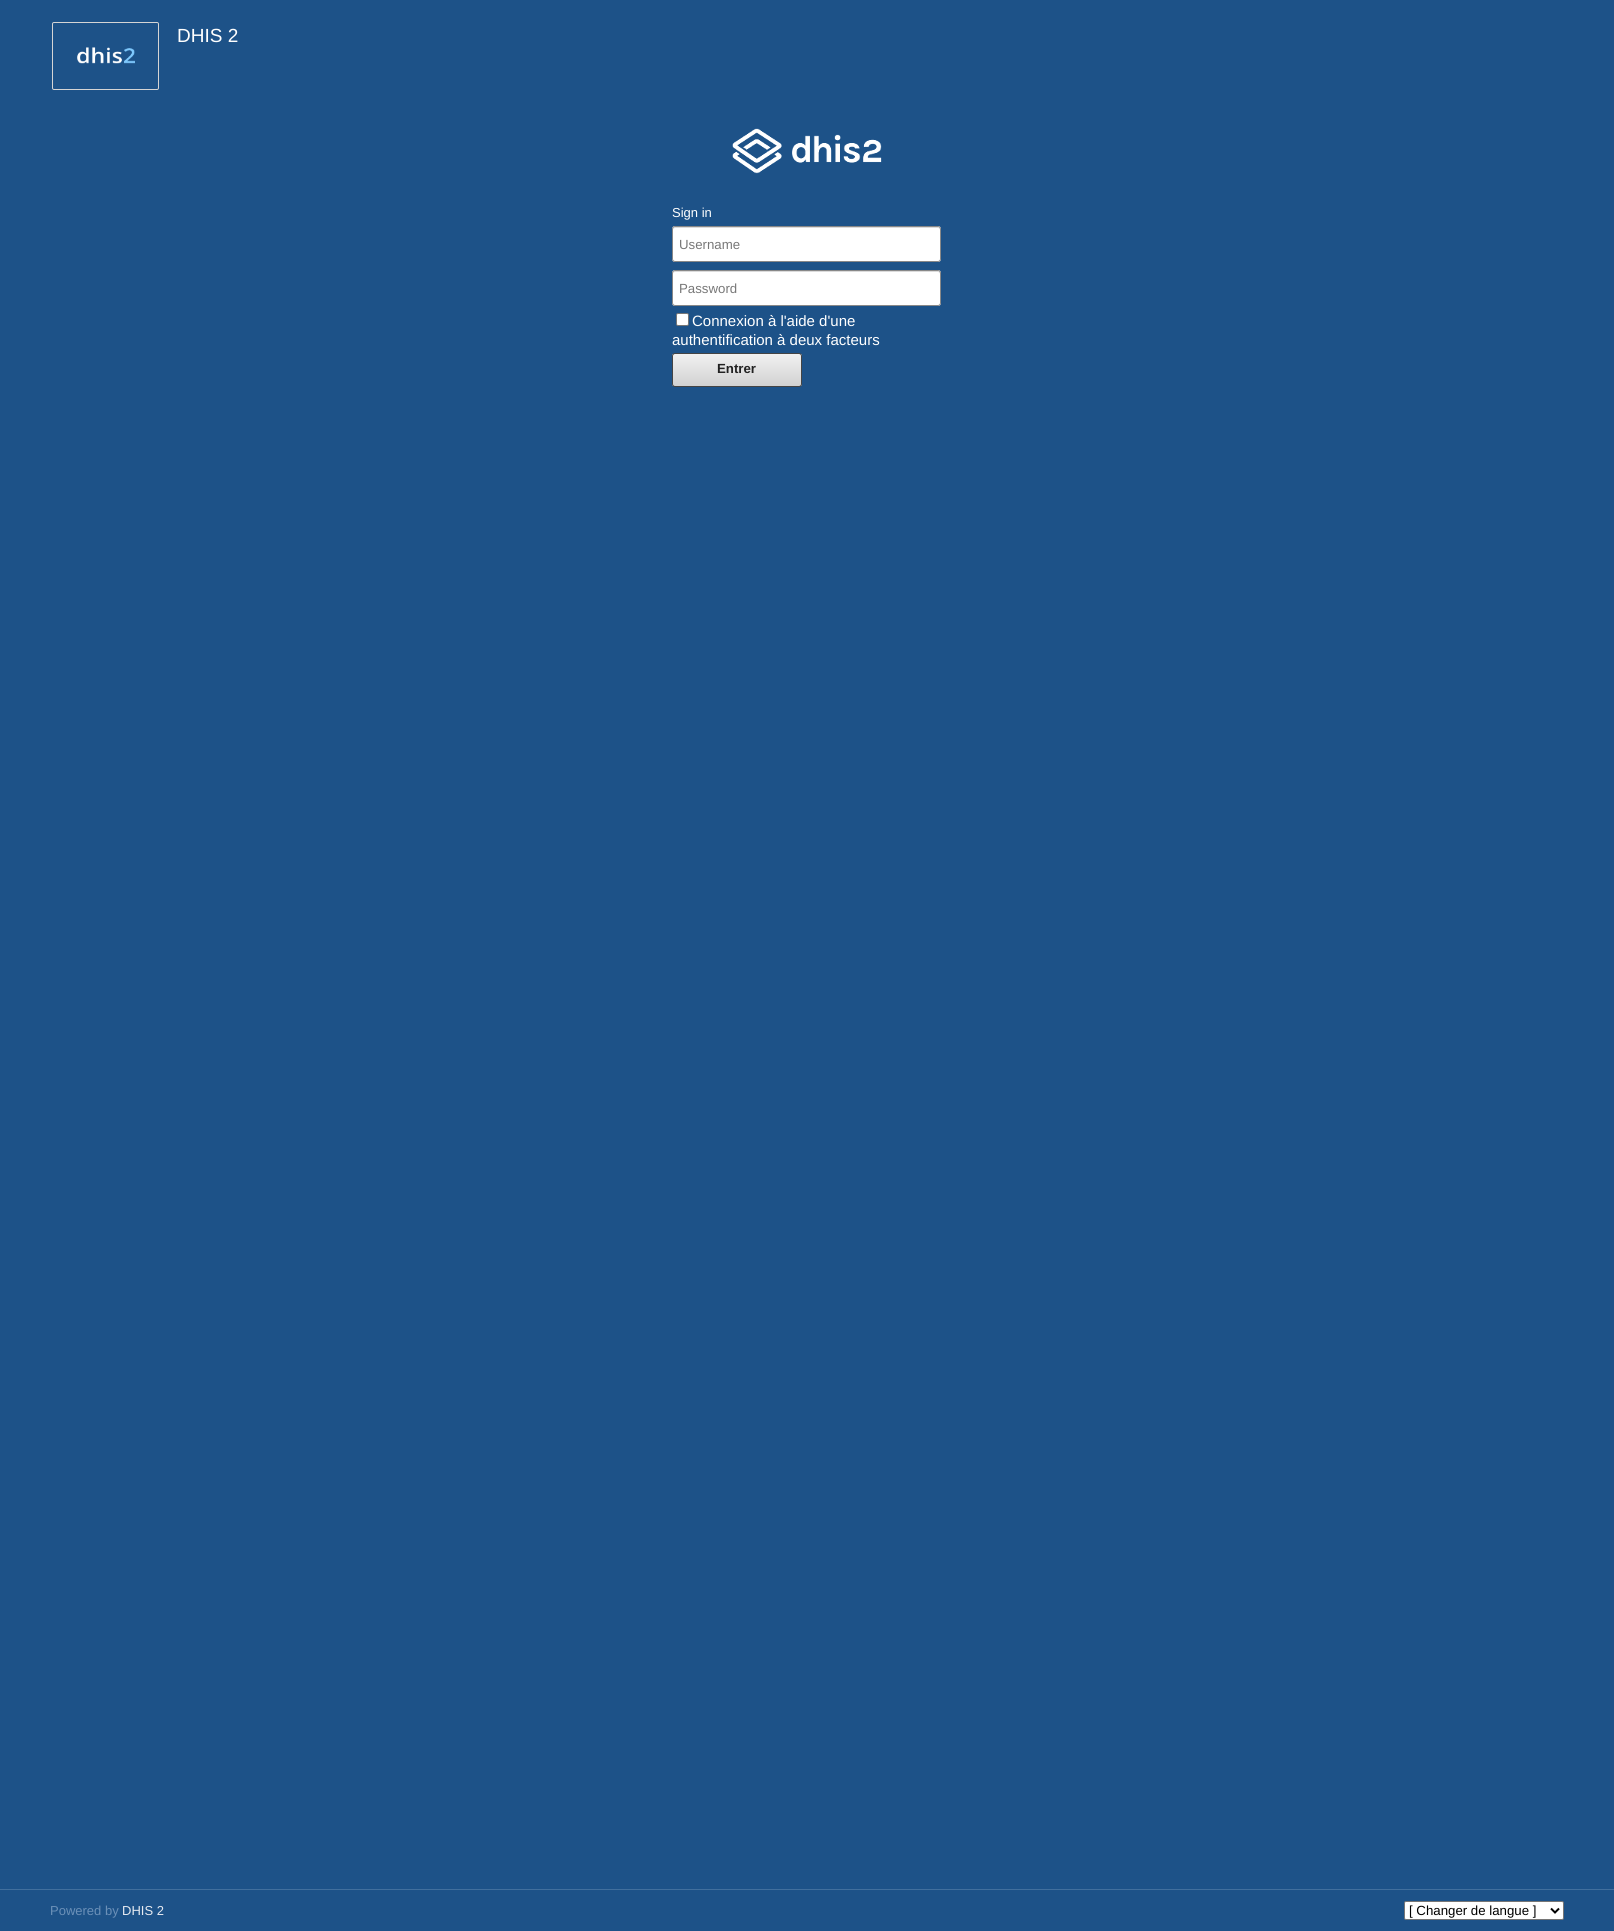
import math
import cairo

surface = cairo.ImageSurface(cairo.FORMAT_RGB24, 1614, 1931)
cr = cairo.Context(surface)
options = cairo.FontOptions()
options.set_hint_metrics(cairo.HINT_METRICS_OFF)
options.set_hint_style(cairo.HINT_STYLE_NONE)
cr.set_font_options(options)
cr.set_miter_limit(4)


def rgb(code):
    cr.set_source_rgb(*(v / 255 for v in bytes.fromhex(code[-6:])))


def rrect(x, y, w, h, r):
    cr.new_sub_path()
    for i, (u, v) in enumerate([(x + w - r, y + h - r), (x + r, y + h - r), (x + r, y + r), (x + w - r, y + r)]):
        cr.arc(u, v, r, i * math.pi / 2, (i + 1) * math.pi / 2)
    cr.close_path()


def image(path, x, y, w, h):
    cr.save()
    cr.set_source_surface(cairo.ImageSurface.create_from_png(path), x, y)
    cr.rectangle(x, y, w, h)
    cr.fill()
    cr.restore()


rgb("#1d5288")
cr.paint()
rrect(52.5, 22.5, 106, 67, 1.5)
rgb("#d5d5d5")
cr.set_line_width(1)
cr.stroke()
image("img/1.png", 77, 47, 58, 17)
image("img/2.png", 732, 128, 150, 46)
rgb("#ffffff")
rrect(672, 226, 269, 36, 3)
cr.fill()
rgb("#dbdbdb")
cr.new_path()
cr.move_to(675, 228)
cr.line_to(938, 228)
cr.curve_to(939, 228, 940, 229, 940, 230)
cr.line_to(940, 228)
cr.line_to(938, 227)
cr.line_to(675, 227)
cr.curve_to(673, 227, 673, 229, 673, 230)
cr.curve_to(673, 229, 674, 228, 675, 228)
cr.close_path()
cr.fill()
rrect(672.5, 226.5, 268, 35, 2.5)
rgb("#888888")
cr.stroke()
rgb("#ffffff")
rrect(672, 270, 269, 36, 3)
cr.fill()
rgb("#dbdbdb")
cr.new_path()
cr.move_to(675, 272)
cr.line_to(938, 272)
cr.curve_to(939, 272, 940, 273, 940, 274)
cr.line_to(940, 272)
cr.line_to(938, 271)
cr.line_to(675, 271)
cr.curve_to(673, 271, 673, 273, 673, 274)
cr.curve_to(673, 273, 674, 272, 675, 272)
cr.close_path()
cr.fill()
rrect(672.5, 270.5, 268, 35, 2.5)
rgb("#888888")
cr.stroke()
rgb("#ffffff")
rrect(676.5, 313.5, 12, 12, 1.5)
cr.fill_preserve()
rgb("#767676")
cr.stroke()
cr.save()
rrect(672, 353, 130, 34, 3)
cr.clip()
gradient = cairo.LinearGradient(737, 354, 737, 386)
gradient.add_color_stop_rgba(0, 0.945, 0.945, 0.945, 1)
gradient.add_color_stop_rgba(1, 0.82, 0.82, 0.82, 1)
cr.set_source(gradient)
cr.rectangle(672, 354, 130, 32)
cr.fill()
cr.restore()
rrect(672.5, 353.5, 129, 33, 2.5)
rgb("#444444")
cr.stroke()
rgb("#416f9d")
cr.rectangle(0, 1889, 1614, 1)
cr.fill()
rgb("#ffffff")
rrect(1404.5, 1901.5, 159, 18, 1.5)
cr.fill_preserve()
rgb("#767676")
cr.stroke()
cr.new_path()
cr.move_to(1551, 1908.5)
cr.line_to(1555, 1912.5)
cr.line_to(1559, 1908.5)
rgb("#000000")
cr.set_line_width(2)
cr.stroke()
cr.select_font_face("Liberation Sans")
cr.set_font_size(19)
rgb("#ffffff")
cr.move_to(177, 42)
cr.show_text("DHIS 2")
cr.set_font_size(13)
cr.move_to(672, 217)
cr.show_text("Sign in")
cr.set_font_size(13.25)
rgb("#777777")
cr.move_to(679, 249)
cr.show_text("Username")
cr.move_to(679, 293)
cr.show_text("Password")
cr.set_font_size(15)
rgb("#ffffff")
cr.move_to(692, 326)
cr.show_text("Connexion à l'aide d'une")
cr.move_to(672, 345)
cr.show_text("authentification à deux facteurs")
cr.select_font_face("Liberation Sans", cairo.FONT_SLANT_NORMAL, cairo.FONT_WEIGHT_BOLD)
cr.set_font_size(13.25)
rgb("#222222")
cr.move_to(717, 373)
cr.show_text("Entrer")
cr.select_font_face("Liberation Sans")
cr.set_font_size(13)
rgb("#6b90b8")
cr.move_to(50, 1915)
cr.show_text("Powered by")
rgb("#e6eaf1")
cr.move_to(122, 1915)
cr.show_text("DHIS 2")
cr.set_font_size(13.25)
rgb("#000000")
cr.move_to(1409, 1915)
cr.show_text("[ Changer de langue ]")
surface.write_to_png("page.png")
